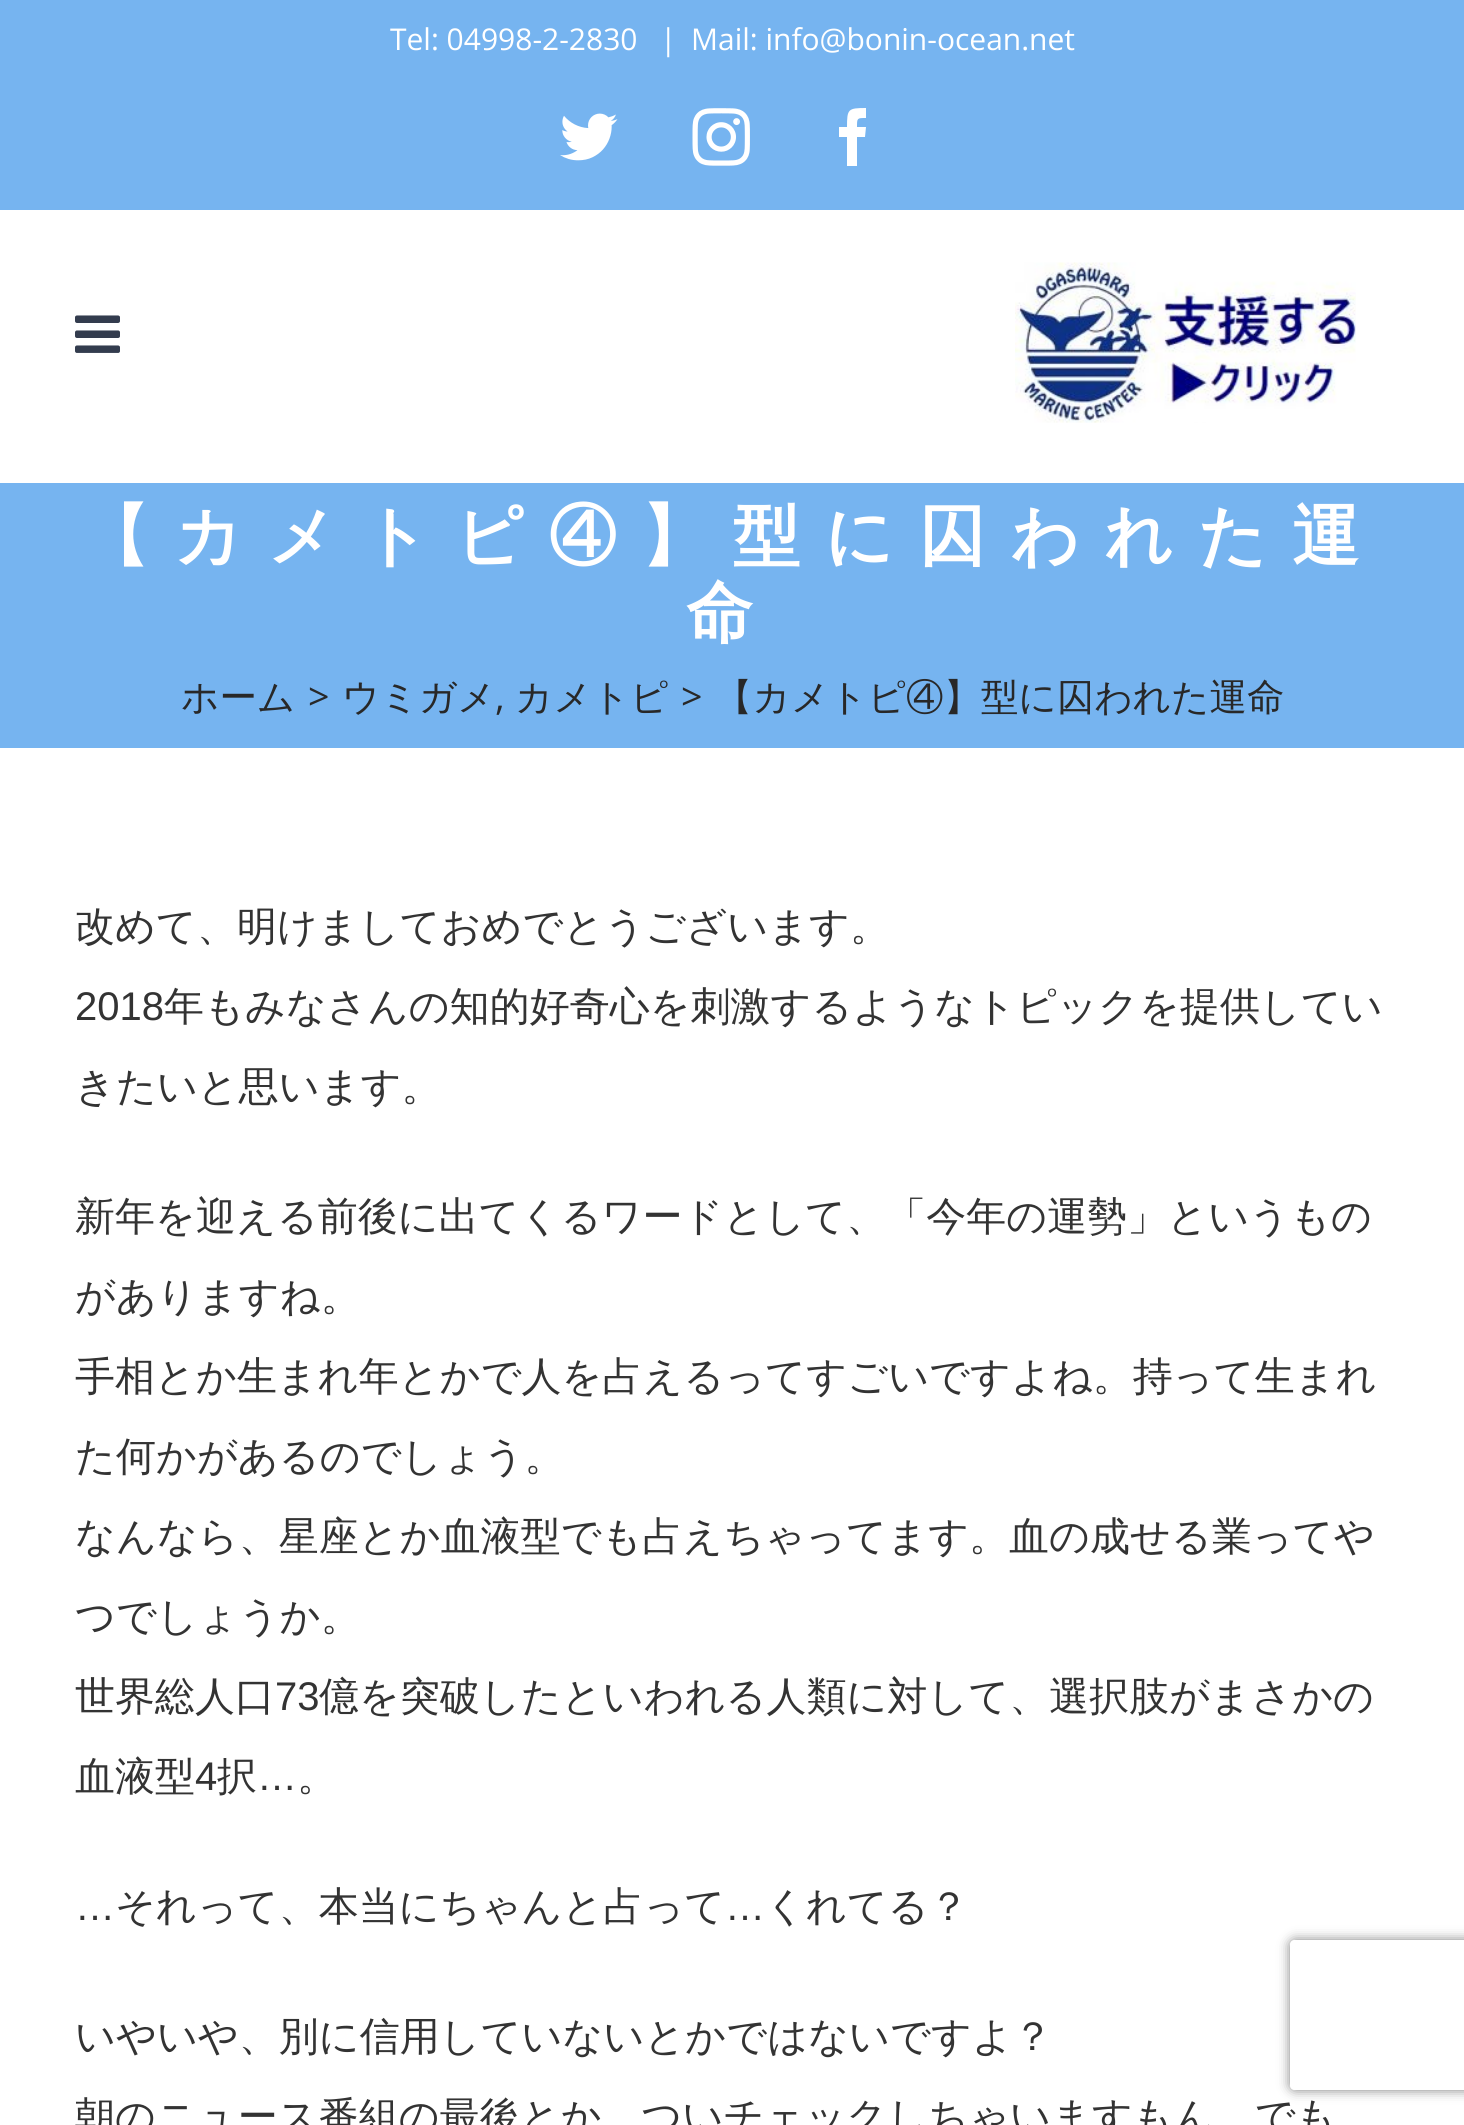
import math
import cairo

surface = cairo.ImageSurface(cairo.FORMAT_RGB24, 1464, 2125)
cr = cairo.Context(surface)
options = cairo.FontOptions()
options.set_hint_metrics(cairo.HINT_METRICS_OFF)
options.set_hint_style(cairo.HINT_STYLE_NONE)
cr.set_font_options(options)
cr.set_miter_limit(4)


def rgb(code):
    cr.set_source_rgb(*(v / 255 for v in bytes.fromhex(code[-6:])))


def tracked(x, y, s, letter, word):
    cr.move_to(x, y)
    for ch in s:
        cr.show_text(ch)
        cr.rel_move_to(letter + word * (ch == ' '), 0)


def rrect(x, y, w, h, r):
    cr.new_sub_path()
    for i, (u, v) in enumerate([(x + w - r, y + h - r), (x + r, y + h - r), (x + r, y + r), (x + w - r, y + r)]):
        cr.arc(u, v, r, i * math.pi / 2, (i + 1) * math.pi / 2)
    cr.close_path()


def soft_shadow(x, y, w, h, r, blur, alpha):
    cr.push_group_with_content(cairo.CONTENT_ALPHA)
    cr.set_operator(cairo.OPERATOR_SOURCE)
    for i in range(15, -16, -2):
        e = blur * i / 6
        if min(w, h) + 2 * e > 0:
            cr.set_source_rgba(0, 0, 0, alpha * math.erfc((i - 1) / 8.5) / 2)
            rrect(x - e, y - e, w + 2 * e, h + 2 * e, max(0, min(r + e + blur * .6, min(w, h) / 2 + e)))
            cr.fill()
    cr.mask(cr.pop_group())


def image(path, x, y, w, h):
    cr.save()
    cr.set_source_surface(cairo.ImageSurface.create_from_png(path), x, y)
    cr.rectangle(x, y, w, h)
    cr.fill()
    cr.restore()


rgb("#ffffff")
cr.paint()
rgb("#76b4f0")
cr.rectangle(0, 0, 1464, 210)
cr.fill()
image("img/1.png", 560, 113, 58, 48)
image("img/2.png", 692, 108, 58, 58)
rgb("#ffffff")
cr.new_path()
cr.move_to(857, 166)
cr.line_to(847, 166)
cr.line_to(847, 137)
cr.line_to(839, 137)
cr.line_to(839, 127)
cr.line_to(847, 127)
cr.curve_to(847, 109, 848, 108, 866, 108)
cr.line_to(866, 118)
cr.curve_to(857, 118, 857, 118, 857, 127)
cr.line_to(866, 127)
cr.line_to(865, 137)
cr.line_to(857, 137)
cr.close_path()
cr.fill()
image("img/3.png", 75, 315, 45, 38)
image("img/4.png", 1015, 262, 341, 161)
rgb("#76b4f0")
cr.rectangle(0, 483, 1464, 265)
cr.fill()
cr.save()
cr.set_fill_rule(cairo.FILL_RULE_EVEN_ODD)
cr.new_path()
cr.move_to(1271, 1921)
cr.line_to(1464, 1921)
cr.line_to(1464, 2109)
cr.line_to(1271, 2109)
cr.close_path()
cr.move_to(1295, 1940)
cr.line_to(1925, 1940)
cr.curve_to(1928, 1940, 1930, 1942, 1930, 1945)
cr.line_to(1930, 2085)
cr.curve_to(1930, 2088, 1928, 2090, 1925, 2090)
cr.line_to(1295, 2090)
cr.curve_to(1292, 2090, 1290, 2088, 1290, 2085)
cr.line_to(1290, 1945)
cr.curve_to(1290, 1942, 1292, 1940, 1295, 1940)
cr.close_path()
cr.clip()
rgb("#808080")
soft_shadow(1290, 1940, 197, 150, 5, 6, 1)
cr.restore()
cr.select_font_face("Open Sans")
cr.set_font_size(30)
rgb("#ffffff")
for x, y, s in [
    (390, 50, "Tel: 04998-2-2830"),
    (660, 50, "|"),
    (691, 50, "Mail: info@bonin-ocean.net"),
]:
    cr.move_to(x, y)
    cr.show_text(s)
cr.select_font_face("WenQuanYi Zen Hei", cairo.FONT_SLANT_NORMAL, cairo.FONT_WEIGHT_BOLD)
cr.set_font_size(67.1)
tracked(82, 559, "【カメトピ④】型に囚われた運", 25, 0)
tracked(686, 636, "命", 25, 0)
cr.select_font_face("WenQuanYi Zen Hei Medium")
cr.set_font_size(37.5)
rgb("#282828")
cr.move_to(181, 710)
cr.show_text("ホーム")
cr.select_font_face("Open Sans")
cr.move_to(308, 710)
cr.show_text(">")
cr.select_font_face("WenQuanYi Zen Hei Medium")
cr.move_to(342, 710)
cr.show_text("ウミガメ")
cr.move_to(515, 710)
cr.show_text("カメトピ")
cr.select_font_face("Open Sans")
cr.move_to(681, 710)
cr.show_text(">")
cr.select_font_face("WenQuanYi Zen Hei Medium")
cr.move_to(715, 710)
cr.show_text("【カメトピ④】型に囚われた運命")
cr.select_font_face("Open Sans")
cr.move_to(495, 710)
cr.show_text(",")
cr.select_font_face("WenQuanYi Zen Hei Medium")
cr.set_font_size(40)
rgb("#333333")
cr.move_to(75, 940)
cr.show_text("改めて、明けましておめでとうございます。")
cr.select_font_face("Liberation Sans")
cr.move_to(75, 1020)
cr.show_text("2018")
cr.select_font_face("WenQuanYi Zen Hei Medium")
for x, y, s in [
    (164, 1020, "年もみなさんの知的好奇心を刺激するようなトピックを提供してい"),
    (75, 1100, "きたいと思います。"),
    (75, 1230, "新年を迎える前後に出てくるワードとして、「今年の運勢」というもの"),
    (75, 1310, "がありますね。"),
    (75, 1390, "手相とか生まれ年とかで人を占えるってすごいですよね。持って生まれ"),
    (75, 1470, "た何かがあるのでしょう。"),
    (75, 1550, "なんなら、星座とか血液型でも占えちゃってます。血の成せる業ってや"),
    (75, 1630, "つでしょうか。"),
    (75, 1710, "世界総人口"),
]:
    cr.move_to(x, y)
    cr.show_text(s)
cr.select_font_face("Liberation Sans")
cr.move_to(275, 1710)
cr.show_text("73")
cr.select_font_face("WenQuanYi Zen Hei Medium")
cr.move_to(319, 1710)
cr.show_text("億を突破したといわれる人類に対して、選択肢がまさかの")
cr.move_to(75, 1790)
cr.show_text("血液型")
cr.select_font_face("Liberation Sans")
cr.move_to(195, 1790)
cr.show_text("4")
cr.select_font_face("WenQuanYi Zen Hei Medium")
cr.move_to(217, 1790)
cr.show_text("択")
cr.select_font_face("Liberation Sans")
cr.move_to(257, 1790)
cr.show_text("…")
cr.select_font_face("WenQuanYi Zen Hei Medium")
cr.move_to(297, 1790)
cr.show_text("。")
cr.select_font_face("Liberation Sans")
cr.move_to(75, 1920)
cr.show_text("…")
cr.select_font_face("WenQuanYi Zen Hei Medium")
cr.move_to(115, 1920)
cr.show_text("それって、本当にちゃんと占って")
cr.select_font_face("Liberation Sans")
cr.move_to(725, 1920)
cr.show_text("…")
cr.select_font_face("WenQuanYi Zen Hei Medium")
for x, y, s in [
    (765, 1920, "くれてる？"),
    (75, 2050, "いやいや、別に信用していないとかではないですよ？"),
    (75, 2130, "朝のニュース番組の最後とか、ついチェックしちゃいますもん。でも"),
]:
    cr.move_to(x, y)
    cr.show_text(s)
surface.write_to_png("page.png")
